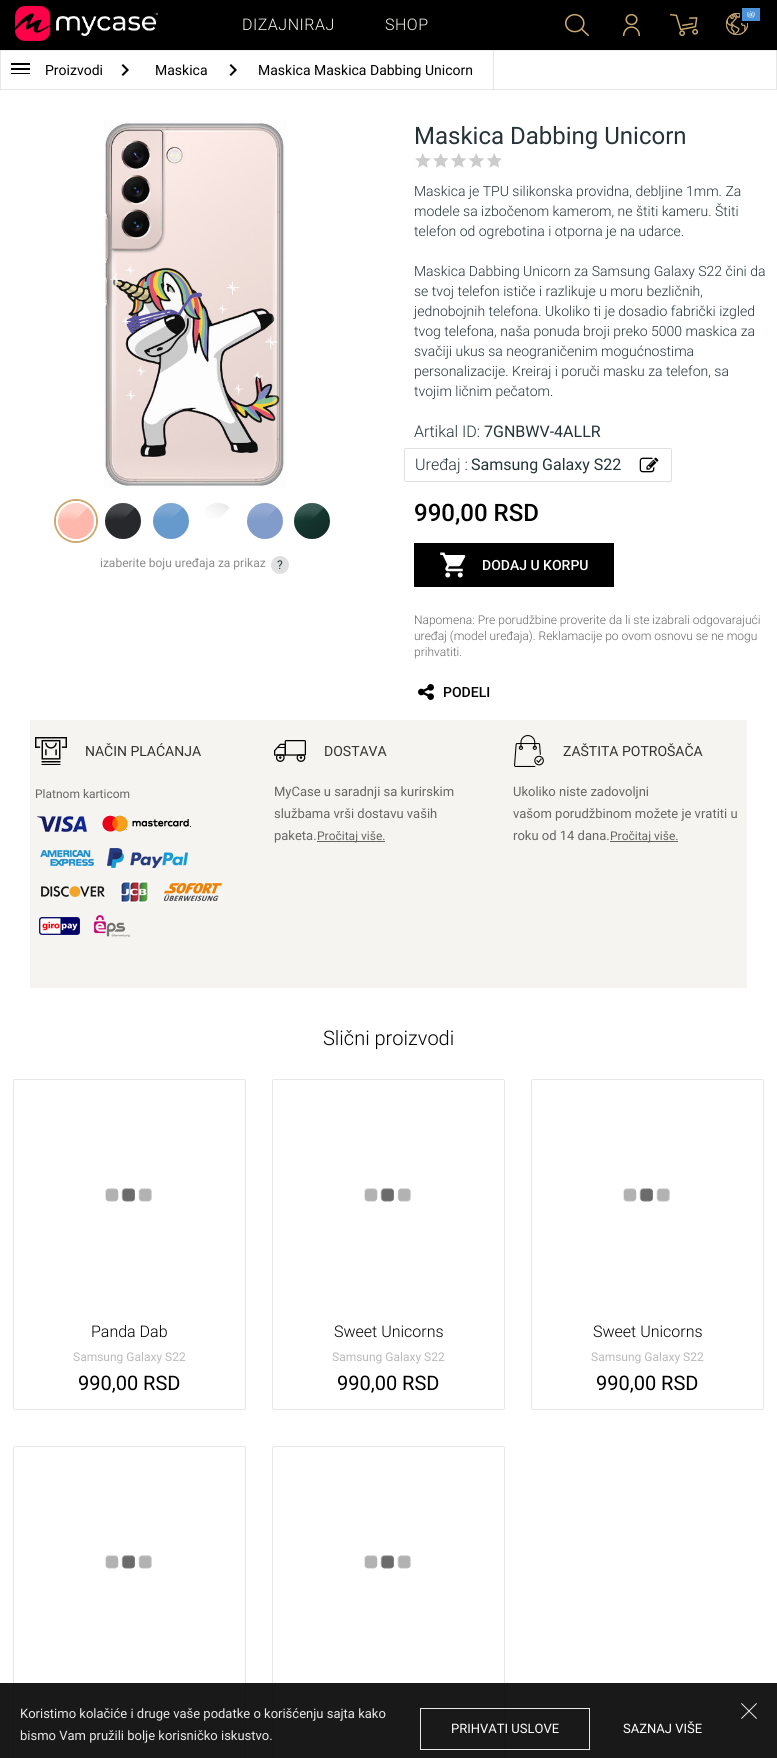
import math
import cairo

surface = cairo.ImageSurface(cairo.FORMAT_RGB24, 777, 1758)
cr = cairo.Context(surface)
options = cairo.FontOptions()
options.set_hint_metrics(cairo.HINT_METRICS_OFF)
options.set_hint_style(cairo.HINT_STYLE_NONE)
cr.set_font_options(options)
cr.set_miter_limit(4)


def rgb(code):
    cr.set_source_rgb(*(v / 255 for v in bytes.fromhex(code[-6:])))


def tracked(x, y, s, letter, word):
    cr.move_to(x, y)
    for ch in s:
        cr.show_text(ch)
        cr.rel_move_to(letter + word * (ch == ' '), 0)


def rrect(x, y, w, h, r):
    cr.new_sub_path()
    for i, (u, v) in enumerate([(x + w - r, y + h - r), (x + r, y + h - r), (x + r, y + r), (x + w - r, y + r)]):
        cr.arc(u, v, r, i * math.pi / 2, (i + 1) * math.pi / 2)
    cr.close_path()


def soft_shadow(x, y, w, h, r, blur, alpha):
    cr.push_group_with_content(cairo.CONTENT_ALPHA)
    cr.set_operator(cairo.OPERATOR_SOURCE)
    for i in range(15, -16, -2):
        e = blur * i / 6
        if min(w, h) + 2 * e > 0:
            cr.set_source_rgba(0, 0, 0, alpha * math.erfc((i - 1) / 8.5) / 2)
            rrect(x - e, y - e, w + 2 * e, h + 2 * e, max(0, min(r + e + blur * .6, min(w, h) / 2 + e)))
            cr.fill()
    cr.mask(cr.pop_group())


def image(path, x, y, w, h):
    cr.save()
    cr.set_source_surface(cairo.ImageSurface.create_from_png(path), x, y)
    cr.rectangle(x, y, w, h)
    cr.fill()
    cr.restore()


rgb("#ffffff")
cr.paint()
for x, y, w, h, color in [
    (0, 0, 777, 50, "#000000"),
    (776, 50, 1, 39, "#e7e7e7"),
    (0, 50, 1, 39, "#e7e7e7"),
    (493, 50, 1, 39, "#e7e7e7"),
]:
    rgb(color)
    cr.rectangle(x, y, w, h)
    cr.fill()
cr.save()
cr.rectangle(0, 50, 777, 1)
cr.clip()
rgb("#000000")
soft_shadow(0, 0, 777, 50, 0, 1, 0.2)
cr.restore()
image("img/1.png", 15, 6, 143, 35)
image("img/2.png", 565, 14, 24, 22)
image("img/3.png", 623, 14, 17, 22)
image("img/4.png", 670, 14, 28, 22)
image("img/5.png", 726, 13, 22, 22)
rrect(741, 7, 20, 15, 1)
rgb("#000000")
cr.stroke()
image("img/6.png", 742, 8, 18, 13)
for x, y, w, h, color in [
    (0, 89, 777, 1, "#e7e7e7"),
    (11, 63, 19, 2, "#000000"),
    (11, 73, 19, 1, "#000000"),
    (11, 68, 19, 2, "#000000"),
]:
    rgb(color)
    cr.rectangle(x, y, w, h)
    cr.fill()
image("img/7.png", 121, 64, 8, 12)
image("img/7.png", 229, 64, 8, 12)
image("img/8.png", 104, 120, 182, 368)
cr.arc(76, 521, 21, 0, 2 * math.pi)
rgb("#cba96f")
cr.stroke()
cr.arc(76, 521, 19, 0, 2 * math.pi)
rgb("#ffffff")
cr.stroke()
image("img/9.png", 58, 503, 36, 36)
image("img/10.png", 105, 503, 36, 36)
image("img/11.png", 153, 503, 36, 36)
image("img/12.png", 205, 503, 25, 15)
image("img/13.png", 247, 503, 36, 36)
image("img/14.png", 294, 503, 36, 36)
rgb("#e0e0e0")
cr.arc(280, 565, 9, 0, 2 * math.pi)
cr.fill()
rgb("#cccccc")
cr.rectangle(414, 152, 89, 19)
cr.fill()
image("img/15.png", 414, 152, 89, 19)
rrect(404.5, 448.5, 267, 33, 1.5)
rgb("#e0e0e0")
cr.set_line_width(1)
cr.stroke()
image("img/16.png", 639, 457, 20, 16)
rgb("#000000")
cr.rectangle(414, 543, 200, 44)
cr.fill()
image("img/17.png", 440, 552, 26, 26)
image("img/18.png", 418, 684, 16, 16)
rgb("#f5f4f0")
cr.rectangle(30, 720, 717, 268)
cr.fill()
image("img/19.png", 35, 737, 32, 28)
image("img/20.png", 37, 816, 50, 16)
image("img/21.png", 102, 815, 89, 17)
image("img/22.png", 40, 850, 54, 16)
image("img/23.png", 107, 848, 81, 20)
image("img/24.png", 41, 886, 64, 11)
image("img/25.png", 120, 881, 29, 22)
image("img/26.png", 164, 883, 58, 18)
image("img/27.png", 39, 917, 41, 18)
image("img/28.png", 94, 915, 36, 22)
image("img/29.png", 274, 740, 32, 22)
rgb("#666666")
cr.rectangle(317, 841, 68, 1)
cr.fill()
image("img/30.png", 514, 735, 30, 32)
cr.rectangle(610, 841, 68, 1)
cr.fill()
rrect(13.5, 1079.5, 232, 330, 1.5)
rgb("#e7e7e7")
cr.stroke()
image("img/31.png", 105, 1188, 47, 14)
rrect(272.5, 1079.5, 232, 330, 1.5)
cr.stroke()
image("img/31.png", 364, 1188, 47, 14)
rrect(531.5, 1079.5, 232, 330, 1.5)
cr.stroke()
image("img/31.png", 623, 1188, 47, 14)
rrect(13.5, 1446.5, 232, 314, 1.5)
cr.stroke()
image("img/31.png", 105, 1555, 47, 14)
rrect(272.5, 1446.5, 232, 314, 1.5)
cr.stroke()
image("img/31.png", 364, 1555, 47, 14)
cr.set_source_rgba(0, 0, 0, 0.9)
cr.rectangle(0, 1683, 777, 75)
cr.fill()
cr.rectangle(420.5, 1708.5, 169, 41)
cr.set_source_rgba(1, 1, 1, 0.9)
cr.stroke()
image("img/32.png", 741, 1703, 16, 16)
cr.select_font_face("Roboto Light")
cr.set_font_size(16)
rgb("#f5f4f0")
tracked(242, 30, "DIZAJNIRAJ", 0.5, 0)
tracked(385, 30, "SHOP", 0.5, 0)
cr.select_font_face("Roboto")
cr.set_font_size(14)
rgb("#000000")
for x, y, s in [
    (45, 75, "Proizvodi"),
    (155, 75, "Maskica"),
    (258, 75, "Maskica Maskica Dabbing Unicorn"),
]:
    cr.move_to(x, y)
    cr.show_text(s)
cr.set_font_size(12)
rgb("#8a8a8a")
cr.move_to(100, 567)
cr.show_text("izaberite boju uređaja za prikaz")
rgb("#253338")
cr.move_to(277, 569)
cr.show_text("?")
cr.set_font_size(24)
cr.move_to(414, 144)
cr.show_text("Maskica Dabbing Unicorn")
cr.select_font_face("Roboto Light")
cr.set_font_size(14)
for x, y, s in [
    (414, 196, "Maskica je TPU silikonska providna, debljine 1mm. Za"),
    (414, 216, "modele sa izbočenom kamerom, ne štiti kameru. Štiti"),
    (414, 236, "telefon od ogrebotina i otporna je na udarce."),
    (414, 276, "Maskica Dabbing Unicorn za Samsung Galaxy S22 čini da"),
    (414, 296, "se tvoj telefon ističe i razlikuje u moru bezličnih,"),
    (414, 316, "jednobojnih telefona. Ukoliko ti je dosadio fabrički izgled"),
    (414, 336, "tvog telefona, naša ponuda broji preko 5000 maskica za"),
    (414, 356, "svačiji ukus sa neograničenim mogućnostima"),
    (414, 376, "personalizacije. Kreiraj i poruči masku za telefon, sa"),
    (414, 396, "tvojim ličnim pečatom."),
]:
    cr.move_to(x, y)
    cr.show_text(s)
cr.set_font_size(16)
cr.move_to(414, 437)
cr.show_text("Artikal ID:")
cr.select_font_face("Roboto")
cr.move_to(484, 437)
cr.show_text("7GNBWV-4ALLR")
cr.select_font_face("Roboto Light")
cr.move_to(415, 470)
cr.show_text("Uređaj :")
cr.select_font_face("Roboto")
cr.move_to(471, 470)
cr.show_text("Samsung Galaxy S22")
cr.select_font_face("Roboto Medium")
cr.set_font_size(24)
rgb("#000000")
cr.move_to(414, 521)
cr.show_text("990,00 RSD")
cr.set_font_size(14)
rgb("#ffffff")
cr.move_to(482, 570)
cr.show_text("DODAJ U KORPU")
cr.select_font_face("Roboto Light")
cr.set_font_size(12)
rgb("#666666")
for x, y, s in [
    (414, 624, "Napomena: Pre porudžbine proverite da li ste izabrali odgovarajući"),
    (414, 640, "uređaj (model uređaja). Reklamacije po ovom osnovu se ne mogu"),
    (414, 656, "prihvatiti."),
]:
    cr.move_to(x, y)
    cr.show_text(s)
cr.select_font_face("Roboto Medium")
cr.set_font_size(14)
rgb("#000000")
cr.move_to(443, 697)
cr.show_text("PODELI")
cr.select_font_face("Roboto")
rgb("#333333")
cr.move_to(85, 756)
cr.show_text("NAČIN PLAĆANJA")
cr.set_font_size(12)
rgb("#666666")
cr.move_to(35, 798)
cr.show_text("Platnom karticom")
cr.set_font_size(14)
rgb("#333333")
cr.move_to(324, 756)
cr.show_text("DOSTAVA")
cr.set_font_size(13)
rgb("#666666")
for x, y, s in [
    (274, 796, "MyCase u saradnji sa kurirskim"),
    (274, 818, "službama vrši dostavu vaših"),
    (274, 840, "paketa."),
]:
    cr.move_to(x, y)
    cr.show_text(s)
cr.set_font_size(12)
cr.move_to(317, 840)
cr.show_text("Pročitaj više.")
cr.set_font_size(14)
rgb("#333333")
cr.move_to(563, 756)
cr.show_text("ZAŠTITA POTROŠAČA")
cr.set_font_size(13)
rgb("#666666")
for x, y, s in [
    (513, 796, "Ukoliko niste zadovoljni"),
    (513, 818, "vašom porudžbinom možete je vratiti u"),
    (513, 840, "roku od 14 dana."),
]:
    cr.move_to(x, y)
    cr.show_text(s)
cr.set_font_size(12)
cr.move_to(610, 840)
cr.show_text("Pročitaj više.")
cr.select_font_face("Roboto Light")
cr.set_font_size(20)
rgb("#000000")
cr.move_to(323, 1045)
cr.show_text("Slični proizvodi")
cr.set_font_size(16)
cr.move_to(91, 1337)
cr.show_text("Panda Dab")
cr.select_font_face("Roboto")
cr.set_font_size(12)
rgb("#bababa")
cr.move_to(73, 1361)
cr.show_text("Samsung Galaxy S22")
cr.set_font_size(20)
rgb("#000000")
cr.move_to(78, 1390)
cr.show_text("990,00 RSD")
cr.select_font_face("Roboto Light")
cr.set_font_size(16)
cr.move_to(334, 1337)
cr.show_text("Sweet Unicorns")
cr.select_font_face("Roboto")
cr.set_font_size(12)
rgb("#bababa")
cr.move_to(332, 1361)
cr.show_text("Samsung Galaxy S22")
cr.set_font_size(20)
rgb("#000000")
cr.move_to(337, 1390)
cr.show_text("990,00 RSD")
cr.select_font_face("Roboto Light")
cr.set_font_size(16)
cr.move_to(593, 1337)
cr.show_text("Sweet Unicorns")
cr.select_font_face("Roboto")
cr.set_font_size(12)
rgb("#bababa")
cr.move_to(591, 1361)
cr.show_text("Samsung Galaxy S22")
cr.set_font_size(20)
rgb("#000000")
cr.move_to(596, 1390)
cr.show_text("990,00 RSD")
cr.set_font_size(13)
rgb("#e8e8e8")
cr.move_to(20, 1718)
cr.show_text("Koristimo kolačiće i druge vaše podatke o korišćenju sajta kako")
cr.move_to(20, 1740)
cr.show_text("bismo Vam pružili bolje korisničko iskustvo.")
rgb("#ffffff")
cr.move_to(451, 1733)
cr.show_text("PRIHVATI USLOVE")
cr.move_to(623, 1733)
cr.show_text("SAZNAJ VIŠE")
surface.write_to_png("page.png")
